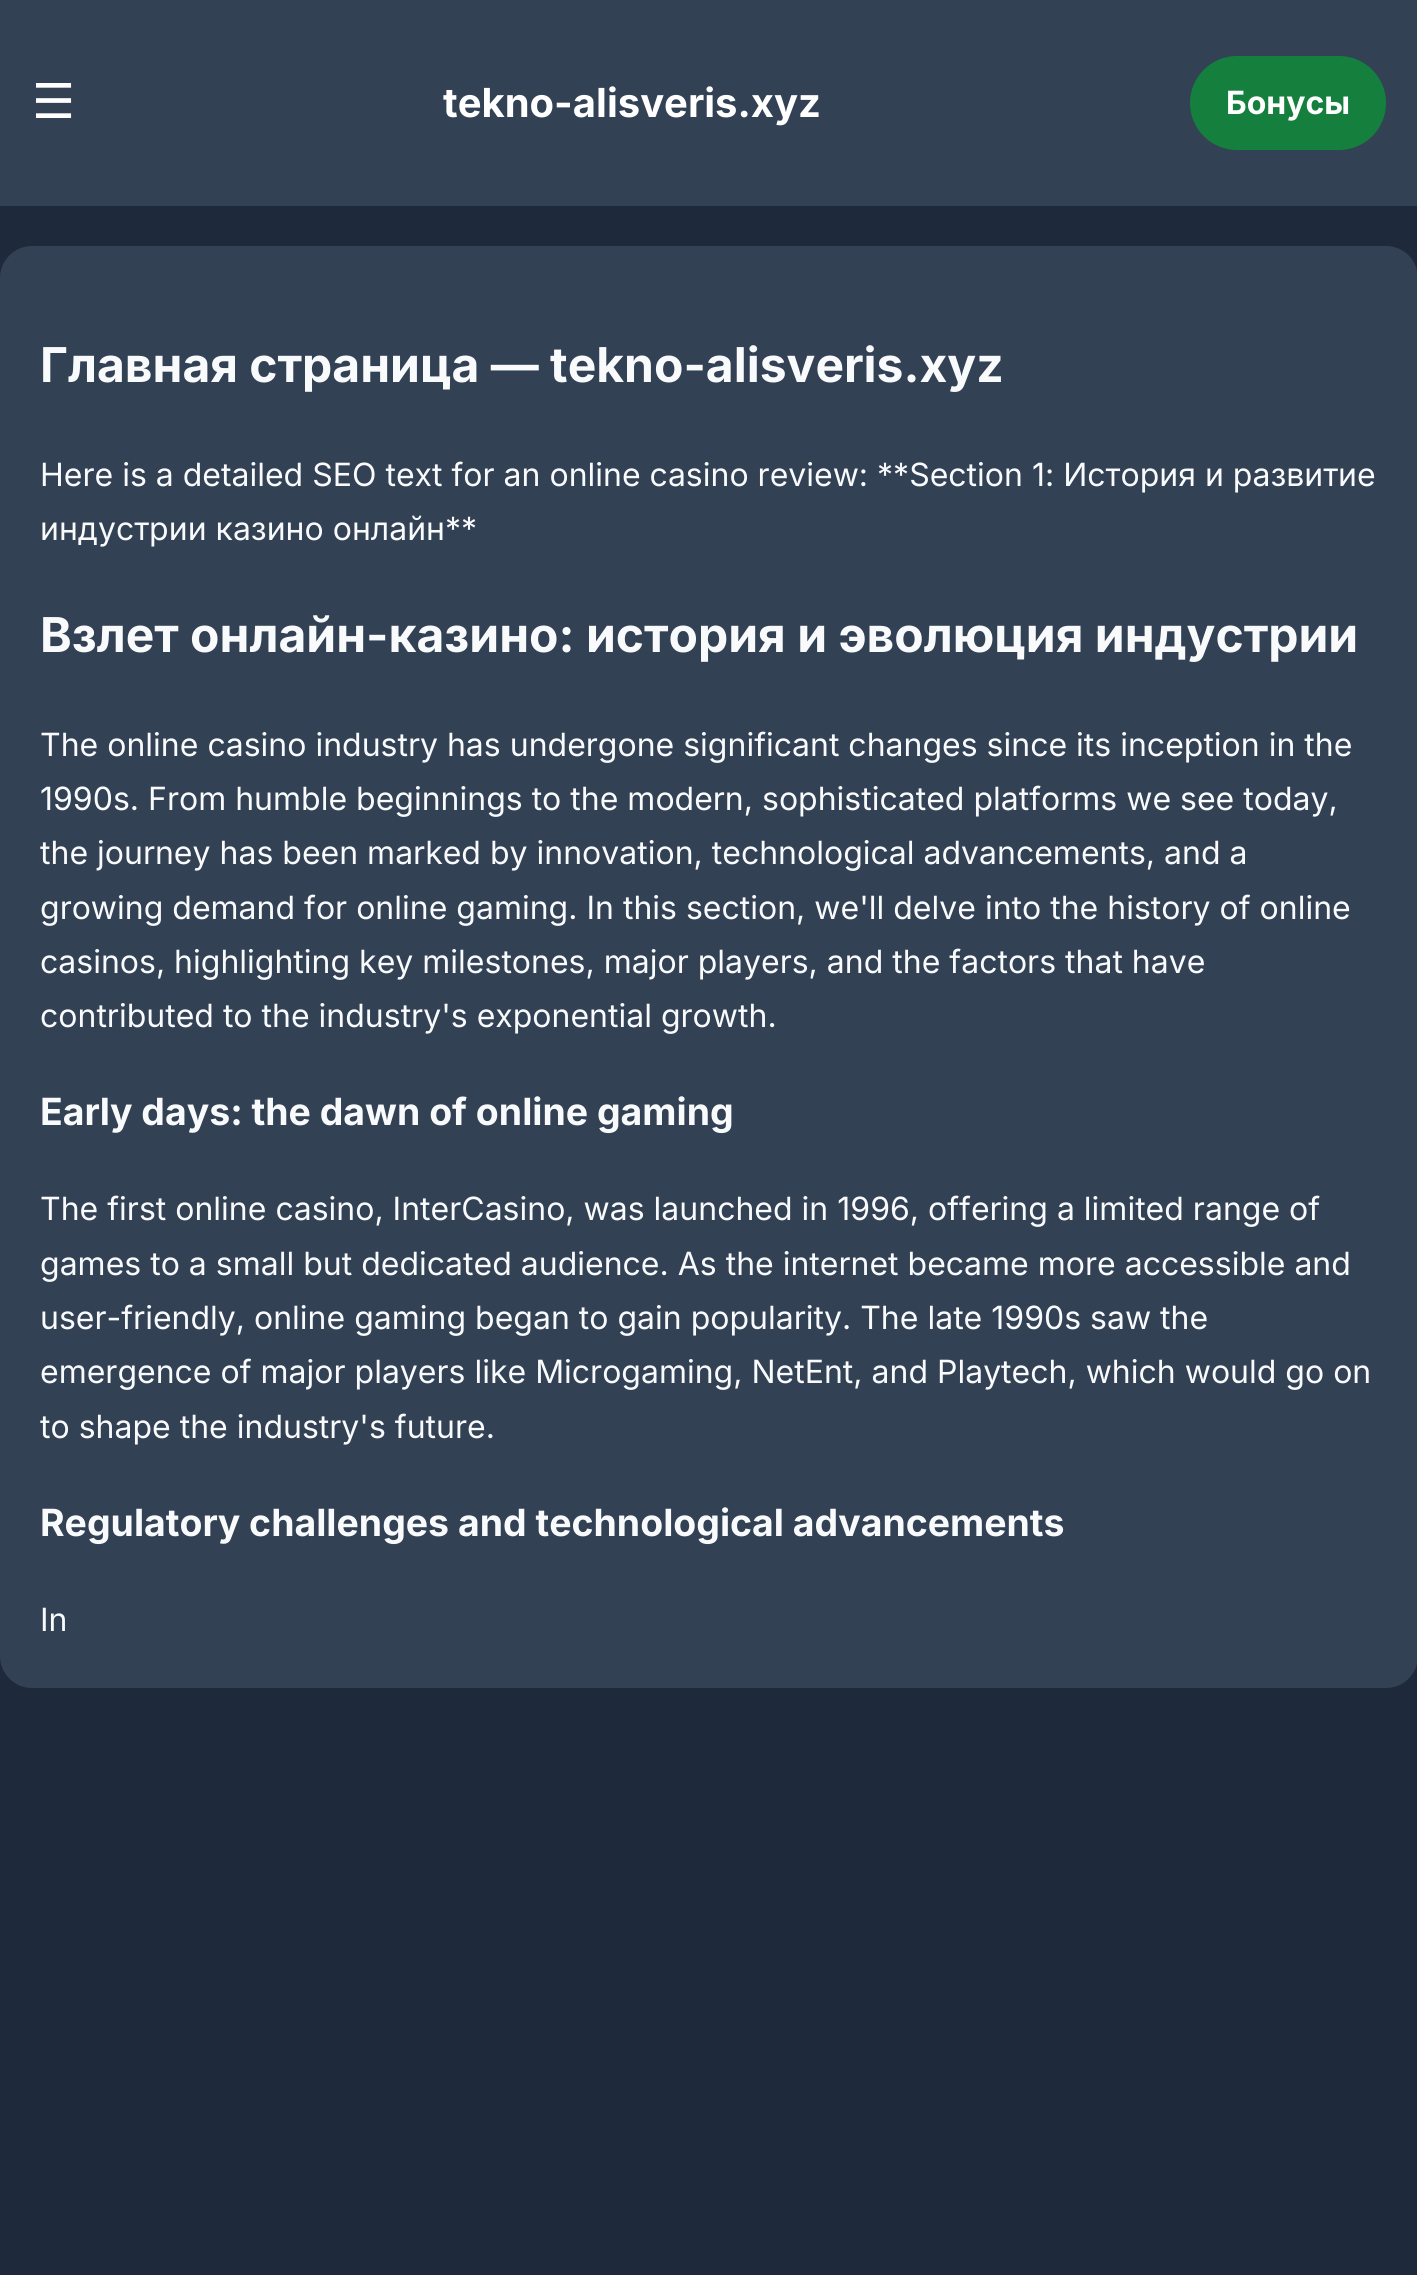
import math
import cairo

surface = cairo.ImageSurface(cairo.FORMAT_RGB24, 1417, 2275)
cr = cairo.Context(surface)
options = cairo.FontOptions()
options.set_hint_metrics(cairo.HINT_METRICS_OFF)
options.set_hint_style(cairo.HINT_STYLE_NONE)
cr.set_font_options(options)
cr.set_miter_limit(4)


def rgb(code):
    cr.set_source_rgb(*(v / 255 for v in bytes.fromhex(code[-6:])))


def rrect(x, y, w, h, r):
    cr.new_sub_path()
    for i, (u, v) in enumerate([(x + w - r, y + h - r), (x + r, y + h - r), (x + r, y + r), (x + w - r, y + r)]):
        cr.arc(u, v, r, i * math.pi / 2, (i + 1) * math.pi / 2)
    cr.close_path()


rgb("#1e293b")
cr.paint()
rgb("#334155")
cr.rectangle(0, 0, 1417, 206)
cr.fill()
rgb("#15803d")
rrect(1190, 56, 196, 94, 47)
cr.fill()
rgb("#334155")
rrect(0, 246, 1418, 1442, 32)
cr.fill()
cr.select_font_face("DejaVu Sans")
cr.set_font_size(48)
rgb("#ffffff")
cr.move_to(32, 118)
cr.show_text("☰")
cr.select_font_face("Inter", cairo.FONT_SLANT_NORMAL, cairo.FONT_WEIGHT_BOLD)
cr.set_font_size(40)
cr.move_to(443, 117)
cr.show_text("tekno-alisveris.xyz")
cr.set_font_size(32)
cr.move_to(1226, 114)
cr.show_text("Бонусы")
cr.set_font_size(48)
rgb("#f8fafc")
cr.move_to(40, 382)
cr.show_text("Главная страница — tekno-alisveris.xyz")
cr.select_font_face("Inter")
cr.set_font_size(32)
cr.move_to(40, 486)
cr.show_text("Here is a detailed SEO text for an online casino review: **Section 1: История и развитие")
cr.move_to(40, 540)
cr.show_text("индустрии казино онлайн**")
cr.select_font_face("Inter", cairo.FONT_SLANT_NORMAL, cairo.FONT_WEIGHT_BOLD)
cr.set_font_size(48)
cr.move_to(40, 652)
cr.show_text("Взлет онлайн-казино: история и эволюция индустрии")
cr.select_font_face("Inter")
cr.set_font_size(32)
for x, y, s in [
    (40, 756, "The online casino industry has undergone significant changes since its inception in the"),
    (40, 810, "1990s. From humble beginnings to the modern, sophisticated platforms we see today,"),
    (40, 864, "the journey has been marked by innovation, technological advancements, and a"),
    (40, 919, "growing demand for online gaming. In this section, we'll delve into the history of online"),
    (40, 973, "casinos, highlighting key milestones, major players, and the factors that have"),
    (40, 1027, "contributed to the industry's exponential growth."),
]:
    cr.move_to(x, y)
    cr.show_text(s)
cr.select_font_face("Inter", cairo.FONT_SLANT_NORMAL, cairo.FONT_WEIGHT_BOLD)
cr.set_font_size(37.45)
cr.move_to(40, 1125)
cr.show_text("Early days: the dawn of online gaming")
cr.select_font_face("Inter")
cr.set_font_size(32)
for x, y, s in [
    (40, 1220, "The first online casino, InterCasino, was launched in 1996, offering a limited range of"),
    (40, 1275, "games to a small but dedicated audience. As the internet became more accessible and"),
    (40, 1329, "user-friendly, online gaming began to gain popularity. The late 1990s saw the"),
    (40, 1383, "emergence of major players like Microgaming, NetEnt, and Playtech, which would go on"),
    (40, 1438, "to shape the industry's future."),
]:
    cr.move_to(x, y)
    cr.show_text(s)
cr.select_font_face("Inter", cairo.FONT_SLANT_NORMAL, cairo.FONT_WEIGHT_BOLD)
cr.set_font_size(37.45)
cr.move_to(40, 1536)
cr.show_text("Regulatory challenges and technological advancements")
cr.select_font_face("Inter")
cr.set_font_size(32)
cr.move_to(40, 1631)
cr.show_text("In")
surface.write_to_png("page.png")
